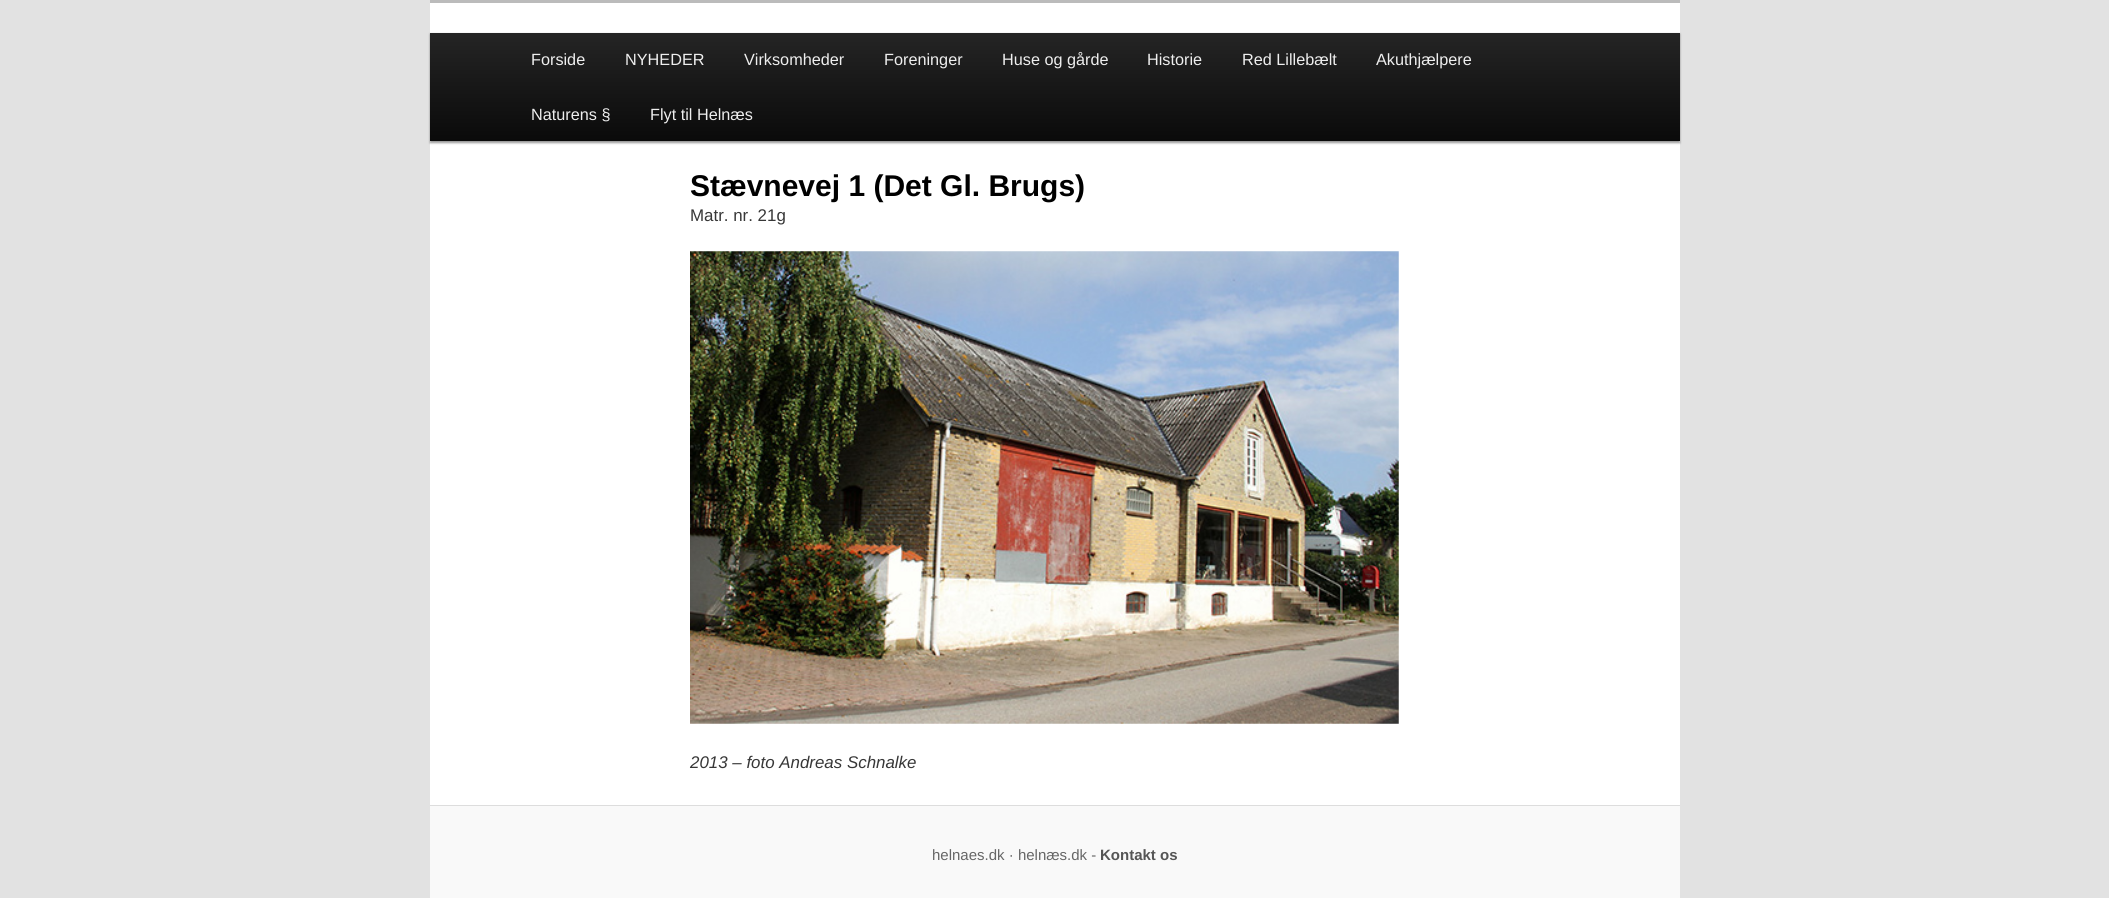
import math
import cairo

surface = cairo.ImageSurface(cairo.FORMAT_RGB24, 2109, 898)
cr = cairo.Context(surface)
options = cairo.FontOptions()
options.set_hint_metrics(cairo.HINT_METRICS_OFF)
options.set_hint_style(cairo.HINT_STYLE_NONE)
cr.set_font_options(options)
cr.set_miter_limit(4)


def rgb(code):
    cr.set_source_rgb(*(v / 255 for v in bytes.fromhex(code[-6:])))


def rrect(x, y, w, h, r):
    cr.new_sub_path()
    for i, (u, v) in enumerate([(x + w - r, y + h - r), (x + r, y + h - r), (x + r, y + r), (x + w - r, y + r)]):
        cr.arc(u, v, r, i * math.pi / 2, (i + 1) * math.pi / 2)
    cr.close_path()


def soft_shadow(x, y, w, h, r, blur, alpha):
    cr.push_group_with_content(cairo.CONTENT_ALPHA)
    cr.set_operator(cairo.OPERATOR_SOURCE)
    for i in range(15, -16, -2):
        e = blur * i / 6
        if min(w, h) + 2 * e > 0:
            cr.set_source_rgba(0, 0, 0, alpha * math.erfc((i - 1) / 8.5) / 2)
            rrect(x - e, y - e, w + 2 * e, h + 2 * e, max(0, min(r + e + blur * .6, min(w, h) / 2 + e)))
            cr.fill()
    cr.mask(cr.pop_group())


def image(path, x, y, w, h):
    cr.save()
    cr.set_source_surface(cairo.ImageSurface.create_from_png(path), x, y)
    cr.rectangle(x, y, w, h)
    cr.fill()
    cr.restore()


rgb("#e2e2e2")
cr.paint()
rgb("#ffffff")
cr.rectangle(430, 3, 1250, 802)
cr.fill()
rgb("#bbbbbb")
cr.rectangle(430, 0, 1250, 3)
cr.fill()
rgb("#000000")
soft_shadow(430, 34, 1250, 109, 0, 1, 0.4)
gradient = cairo.LinearGradient(1055, 32, 1055, 141)
gradient.add_color_stop_rgba(0, 0.145, 0.145, 0.145, 1)
gradient.add_color_stop_rgba(1, 0.039, 0.039, 0.039, 1)
cr.set_source(gradient)
cr.rectangle(430, 33, 1250, 108)
cr.fill()
image("img/1.png", 690, 251, 709, 473)
rgb("#f9f9f9")
cr.rectangle(430, 806, 1250, 92)
cr.fill()
rgb("#dddddd")
cr.rectangle(430, 805, 1250, 1)
cr.fill()
cr.select_font_face("Liberation Sans")
cr.set_font_size(16.25)
rgb("#eeeeee")
for x, y, s in [
    (531, 65, "Forside"),
    (625, 65, "NYHEDER"),
    (744, 65, "Virksomheder"),
    (884, 65, "Foreninger"),
    (1002, 65, "Huse og gårde"),
    (1147, 65, "Historie"),
    (1242, 65, "Red Lillebælt"),
    (1376, 65, "Akuthjælpere"),
    (531, 120, "Naturens §"),
    (650, 120, "Flyt til Helnæs"),
]:
    cr.move_to(x, y)
    cr.show_text(s)
cr.select_font_face("Liberation Sans", cairo.FONT_SLANT_NORMAL, cairo.FONT_WEIGHT_BOLD)
cr.set_font_size(30)
rgb("#000000")
cr.move_to(690, 196)
cr.show_text("Stævnevej 1 (Det Gl. Brugs)")
cr.select_font_face("Liberation Sans")
cr.set_font_size(16.9)
rgb("#373737")
cr.move_to(690, 221)
cr.show_text("Matr. nr. 21g")
cr.select_font_face("Liberation Sans", cairo.FONT_SLANT_ITALIC)
cr.move_to(690, 768)
cr.show_text("2013 – foto Andreas Schnalke")
cr.select_font_face("Liberation Sans")
cr.set_font_size(15)
rgb("#666666")
cr.move_to(932, 860)
cr.show_text("helnaes.dk · helnæs.dk -")
cr.select_font_face("Liberation Sans", cairo.FONT_SLANT_NORMAL, cairo.FONT_WEIGHT_BOLD)
rgb("#555555")
cr.move_to(1100, 860)
cr.show_text("Kontakt os")
surface.write_to_png("page.png")
